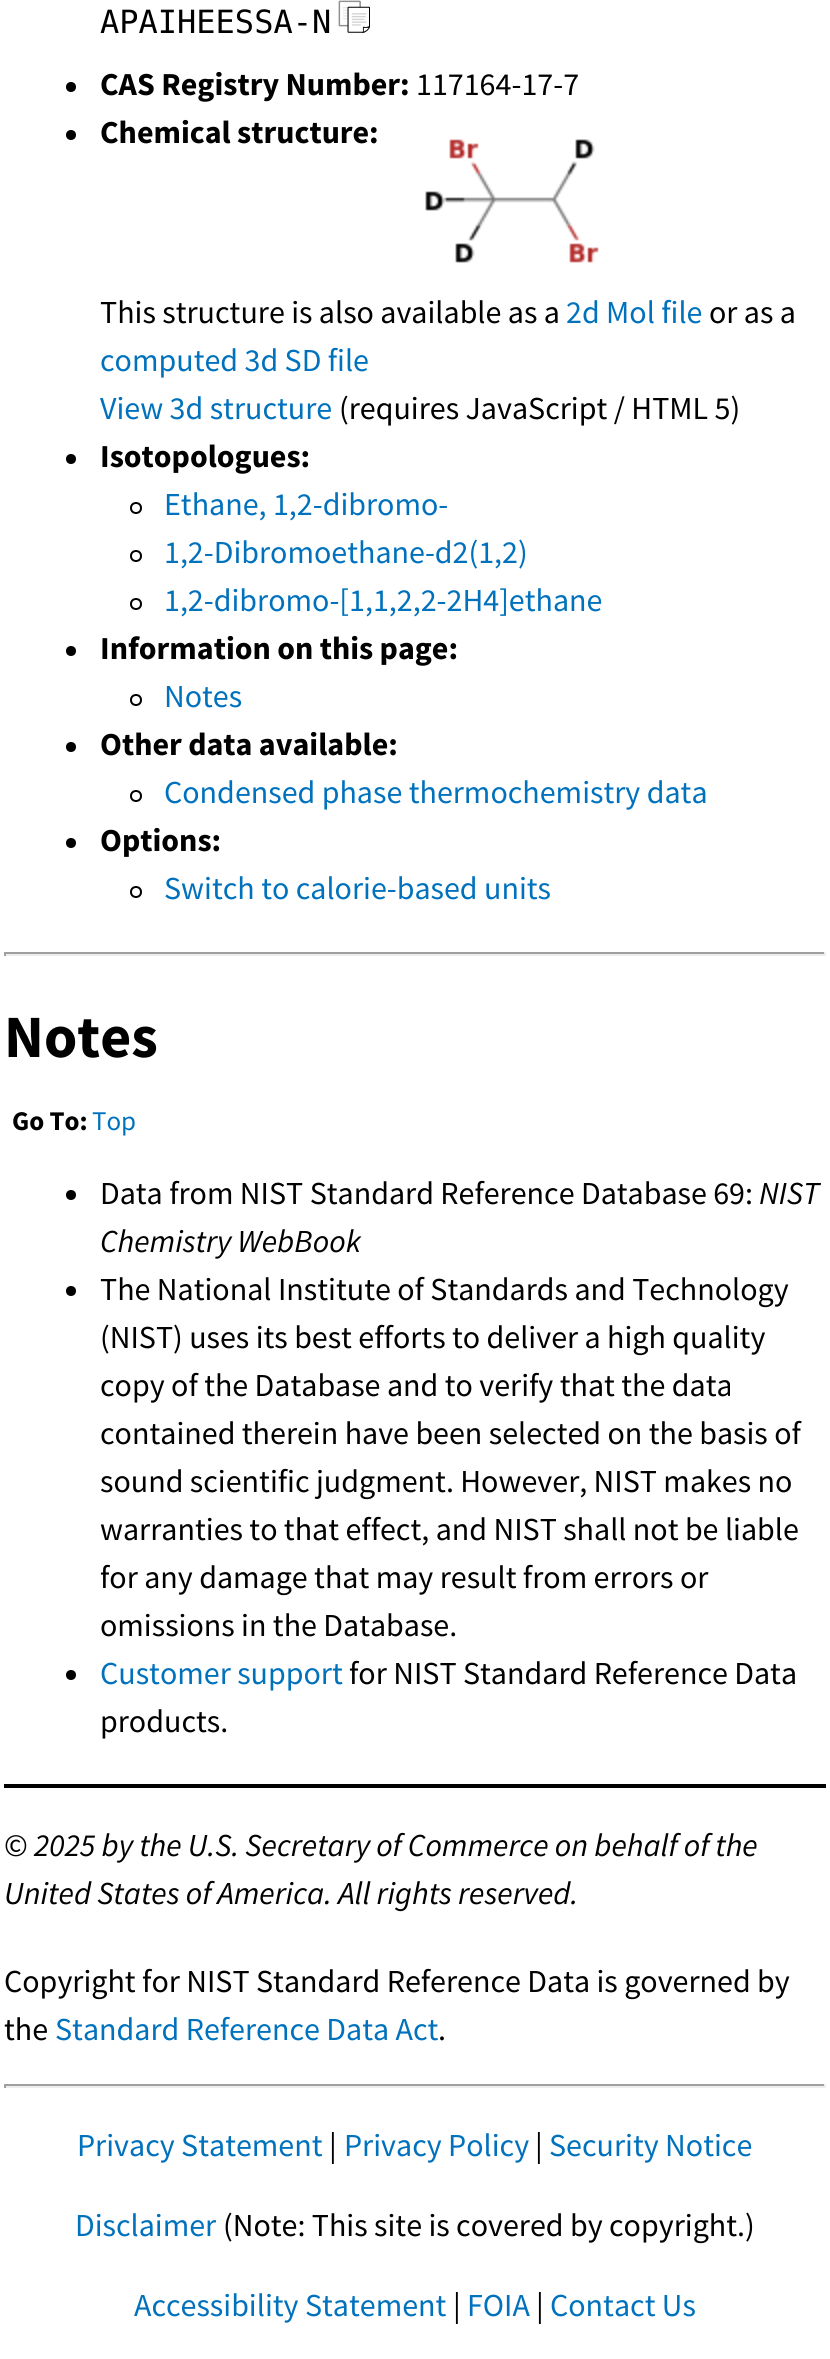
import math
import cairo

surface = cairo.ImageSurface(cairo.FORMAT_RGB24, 830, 2359)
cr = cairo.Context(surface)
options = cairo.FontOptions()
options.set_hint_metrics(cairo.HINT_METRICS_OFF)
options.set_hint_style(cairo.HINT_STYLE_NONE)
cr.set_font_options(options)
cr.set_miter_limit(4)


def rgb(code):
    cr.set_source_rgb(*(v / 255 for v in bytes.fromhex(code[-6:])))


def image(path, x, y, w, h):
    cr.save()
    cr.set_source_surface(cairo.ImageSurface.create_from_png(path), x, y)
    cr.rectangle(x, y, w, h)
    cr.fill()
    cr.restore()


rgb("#ffffff")
cr.paint()
image("img/1.png", 338, 0, 32, 33)
rgb("#000000")
cr.arc(71, 87, 5, 0, 2 * math.pi)
cr.fill()
cr.arc(71, 135, 5, 0, 2 * math.pi)
cr.fill()
image("img/2.png", 425, 139, 174, 124)
cr.arc(71, 459, 5, 0, 2 * math.pi)
cr.fill()
cr.arc(136, 508, 5, 0, 2 * math.pi)
cr.stroke()
cr.arc(136, 556, 5, 0, 2 * math.pi)
cr.stroke()
cr.arc(136, 604, 5, 0, 2 * math.pi)
cr.stroke()
cr.arc(71, 651, 5, 0, 2 * math.pi)
cr.fill()
cr.arc(136, 700, 5, 0, 2 * math.pi)
cr.stroke()
cr.arc(71, 747, 5, 0, 2 * math.pi)
cr.fill()
cr.arc(136, 796, 5, 0, 2 * math.pi)
cr.stroke()
cr.arc(71, 843, 5, 0, 2 * math.pi)
cr.fill()
cr.arc(136, 892, 5, 0, 2 * math.pi)
cr.stroke()
for x, y, w, h, color in [
    (4, 952, 822, 2, "#9f9f9f"),
    (824, 952, 2, 4, "#eeeeee"),
    (4, 954, 822, 2, "#eeeeee"),
    (4, 952, 2, 4, "#9f9f9f"),
]:
    rgb(color)
    cr.rectangle(x, y, w, h)
    cr.fill()
rgb("#000000")
cr.arc(71, 1195, 5, 0, 2 * math.pi)
cr.fill()
cr.arc(71, 1291, 5, 0, 2 * math.pi)
cr.fill()
cr.arc(71, 1675, 5, 0, 2 * math.pi)
cr.fill()
for x, y, w, h, color in [
    (4, 1784, 822, 4, "#000000"),
    (4, 2084, 822, 2, "#9f9f9f"),
    (824, 2084, 2, 4, "#eeeeee"),
    (4, 2086, 822, 2, "#eeeeee"),
    (4, 2084, 2, 4, "#9f9f9f"),
]:
    rgb(color)
    cr.rectangle(x, y, w, h)
    cr.fill()
cr.select_font_face("DejaVu Sans Mono")
cr.set_font_size(32)
rgb("#000000")
cr.move_to(100, 33)
cr.show_text("APAIHEESSA-N")
cr.select_font_face("Source Sans Pro", cairo.FONT_SLANT_NORMAL, cairo.FONT_WEIGHT_BOLD)
cr.move_to(100, 95)
cr.show_text("CAS Registry Number:")
cr.select_font_face("Source Sans Pro")
cr.move_to(416, 95)
cr.show_text("117164-17-7")
cr.select_font_face("Source Sans Pro", cairo.FONT_SLANT_NORMAL, cairo.FONT_WEIGHT_BOLD)
cr.move_to(100, 143)
cr.show_text("Chemical structure:")
cr.select_font_face("Source Sans Pro")
cr.move_to(100, 323)
cr.show_text("This structure is also available as a")
rgb("#0071bc")
cr.move_to(566, 323)
cr.show_text("2d Mol file")
rgb("#000000")
cr.move_to(709, 323)
cr.show_text("or as a")
rgb("#0071bc")
cr.move_to(100, 371)
cr.show_text("computed 3d SD file")
cr.move_to(100, 419)
cr.show_text("View 3d structure")
rgb("#000000")
cr.move_to(339, 419)
cr.show_text("(requires JavaScript / HTML 5)")
cr.select_font_face("Source Sans Pro", cairo.FONT_SLANT_NORMAL, cairo.FONT_WEIGHT_BOLD)
cr.move_to(100, 467)
cr.show_text("Isotopologues:")
cr.select_font_face("Source Sans Pro")
rgb("#0071bc")
for x, y, s in [
    (164, 515, "Ethane, 1,2-dibromo-"),
    (164, 563, "1,2-Dibromoethane-d2(1,2)"),
    (164, 611, "1,2-dibromo-[1,1,2,2-2H4]ethane"),
]:
    cr.move_to(x, y)
    cr.show_text(s)
cr.select_font_face("Source Sans Pro", cairo.FONT_SLANT_NORMAL, cairo.FONT_WEIGHT_BOLD)
rgb("#000000")
cr.move_to(100, 659)
cr.show_text("Information on this page:")
cr.select_font_face("Source Sans Pro")
rgb("#0071bc")
cr.move_to(164, 707)
cr.show_text("Notes")
cr.select_font_face("Source Sans Pro", cairo.FONT_SLANT_NORMAL, cairo.FONT_WEIGHT_BOLD)
rgb("#000000")
cr.move_to(100, 755)
cr.show_text("Other data available:")
cr.select_font_face("Source Sans Pro")
rgb("#0071bc")
cr.move_to(164, 803)
cr.show_text("Condensed phase thermochemistry data")
cr.select_font_face("Source Sans Pro", cairo.FONT_SLANT_NORMAL, cairo.FONT_WEIGHT_BOLD)
rgb("#000000")
cr.move_to(100, 851)
cr.show_text("Options:")
cr.select_font_face("Source Sans Pro")
rgb("#0071bc")
cr.move_to(164, 899)
cr.show_text("Switch to calorie-based units")
cr.select_font_face("Source Sans Pro", cairo.FONT_SLANT_NORMAL, cairo.FONT_WEIGHT_BOLD)
cr.set_font_size(60)
rgb("#000000")
cr.move_to(4, 1057)
cr.show_text("Notes")
cr.set_font_size(27)
cr.move_to(12, 1130)
cr.show_text("Go To:")
cr.select_font_face("Source Sans Pro")
rgb("#0071bc")
cr.move_to(92, 1130)
cr.show_text("Top")
cr.set_font_size(32)
rgb("#000000")
cr.move_to(100, 1204)
cr.show_text("Data from NIST Standard Reference Database 69:")
cr.select_font_face("Source Sans Pro", cairo.FONT_SLANT_ITALIC)
cr.move_to(759, 1204)
cr.show_text("NIST")
cr.move_to(100, 1252)
cr.show_text("Chemistry WebBook")
cr.select_font_face("Source Sans Pro")
for x, y, s in [
    (100, 1300, "The National Institute of Standards and Technology"),
    (100, 1348, "(NIST) uses its best efforts to deliver a high quality"),
    (100, 1396, "copy of the Database and to verify that the data"),
    (100, 1444, "contained therein have been selected on the basis of"),
    (100, 1492, "sound scientific judgment. However, NIST makes no"),
    (100, 1540, "warranties to that effect, and NIST shall not be liable"),
    (100, 1588, "for any damage that may result from errors or"),
    (100, 1636, "omissions in the Database."),
]:
    cr.move_to(x, y)
    cr.show_text(s)
rgb("#0071bc")
cr.move_to(100, 1684)
cr.show_text("Customer support")
rgb("#000000")
for x, y, s in [
    (349, 1684, "for NIST Standard Reference Data"),
    (100, 1732, "products."),
    (4, 1856, "©"),
]:
    cr.move_to(x, y)
    cr.show_text(s)
cr.select_font_face("Source Sans Pro", cairo.FONT_SLANT_ITALIC)
cr.move_to(34, 1856)
cr.show_text("2025 by the U.S. Secretary of Commerce on behalf of the")
cr.move_to(4, 1904)
cr.show_text("United States of America. All rights reserved.")
cr.select_font_face("Source Sans Pro")
cr.move_to(4, 1992)
cr.show_text("Copyright for NIST Standard Reference Data is governed by")
cr.move_to(4, 2040)
cr.show_text("the")
rgb("#0071bc")
cr.move_to(55, 2040)
cr.show_text("Standard Reference Data Act")
rgb("#000000")
cr.move_to(438, 2040)
cr.show_text(".")
rgb("#0071bc")
cr.move_to(77, 2156)
cr.show_text("Privacy Statement")
rgb("#000000")
cr.move_to(329, 2156)
cr.show_text("|")
rgb("#0071bc")
cr.move_to(344, 2156)
cr.show_text("Privacy Policy")
rgb("#000000")
cr.move_to(535, 2156)
cr.show_text("|")
rgb("#0071bc")
cr.move_to(549, 2156)
cr.show_text("Security Notice")
cr.move_to(75, 2236)
cr.show_text("Disclaimer")
rgb("#000000")
cr.move_to(223, 2236)
cr.show_text("(Note: This site is covered by copyright.)")
rgb("#0071bc")
cr.move_to(134, 2316)
cr.show_text("Accessibility Statement")
rgb("#000000")
cr.move_to(453, 2316)
cr.show_text("|")
rgb("#0071bc")
cr.move_to(467, 2316)
cr.show_text("FOIA")
rgb("#000000")
cr.move_to(536, 2316)
cr.show_text("|")
rgb("#0071bc")
cr.move_to(550, 2316)
cr.show_text("Contact Us")
surface.write_to_png("page.png")
